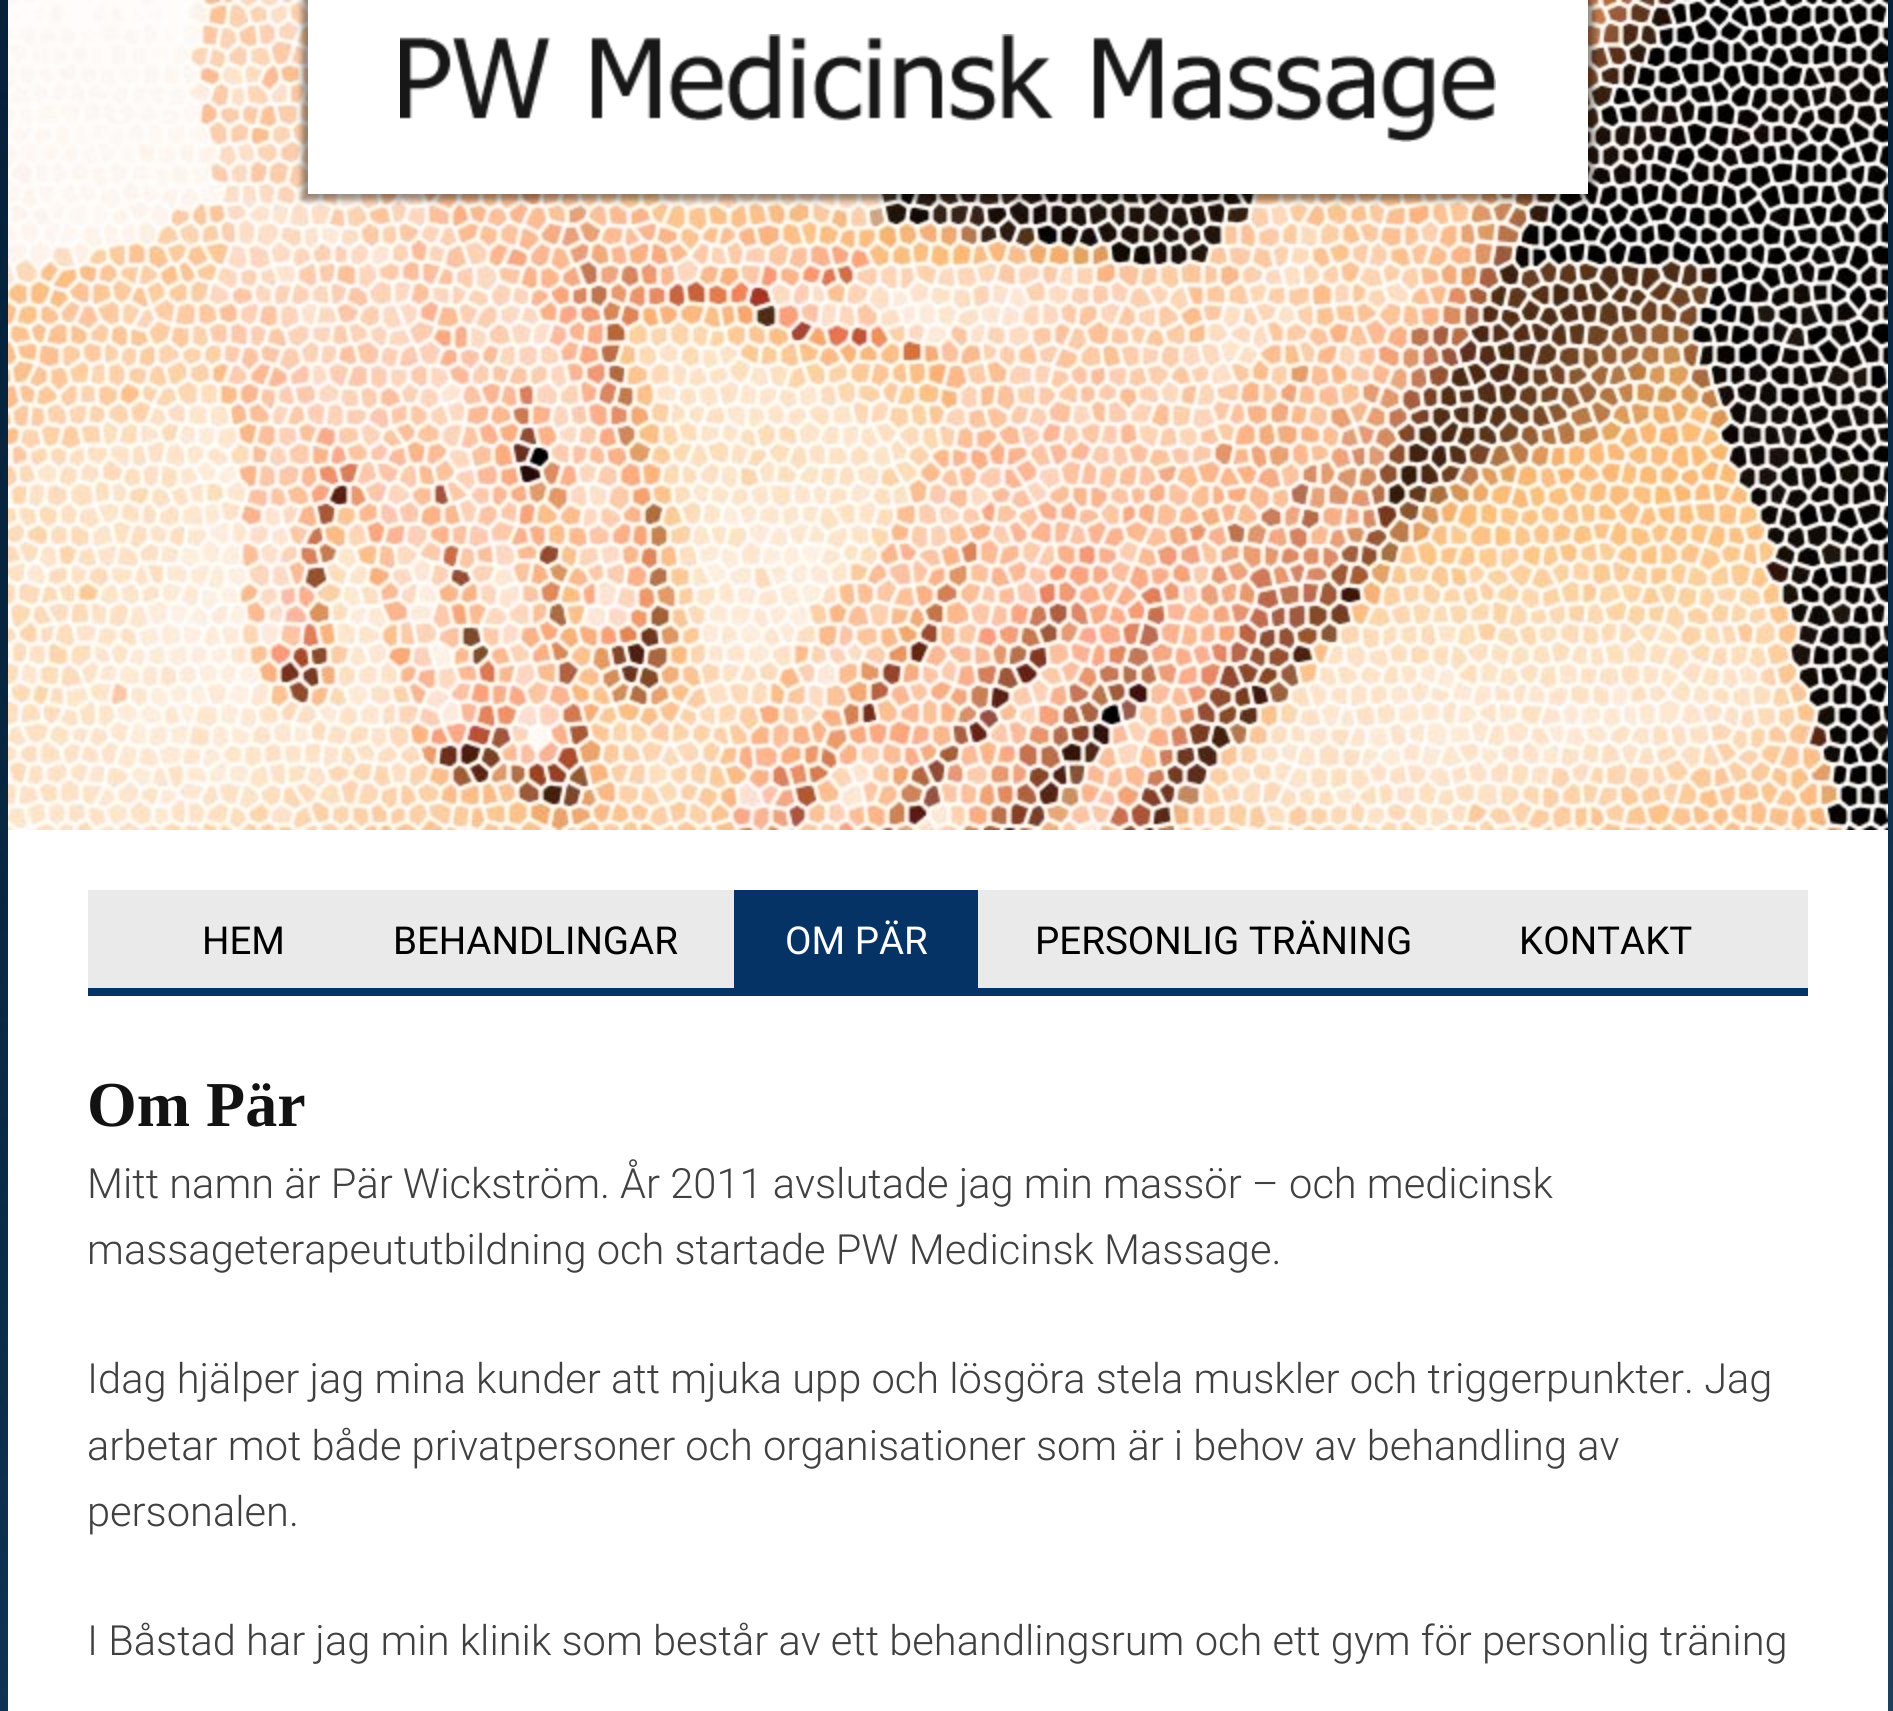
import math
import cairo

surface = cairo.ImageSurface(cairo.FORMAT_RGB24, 1893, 1711)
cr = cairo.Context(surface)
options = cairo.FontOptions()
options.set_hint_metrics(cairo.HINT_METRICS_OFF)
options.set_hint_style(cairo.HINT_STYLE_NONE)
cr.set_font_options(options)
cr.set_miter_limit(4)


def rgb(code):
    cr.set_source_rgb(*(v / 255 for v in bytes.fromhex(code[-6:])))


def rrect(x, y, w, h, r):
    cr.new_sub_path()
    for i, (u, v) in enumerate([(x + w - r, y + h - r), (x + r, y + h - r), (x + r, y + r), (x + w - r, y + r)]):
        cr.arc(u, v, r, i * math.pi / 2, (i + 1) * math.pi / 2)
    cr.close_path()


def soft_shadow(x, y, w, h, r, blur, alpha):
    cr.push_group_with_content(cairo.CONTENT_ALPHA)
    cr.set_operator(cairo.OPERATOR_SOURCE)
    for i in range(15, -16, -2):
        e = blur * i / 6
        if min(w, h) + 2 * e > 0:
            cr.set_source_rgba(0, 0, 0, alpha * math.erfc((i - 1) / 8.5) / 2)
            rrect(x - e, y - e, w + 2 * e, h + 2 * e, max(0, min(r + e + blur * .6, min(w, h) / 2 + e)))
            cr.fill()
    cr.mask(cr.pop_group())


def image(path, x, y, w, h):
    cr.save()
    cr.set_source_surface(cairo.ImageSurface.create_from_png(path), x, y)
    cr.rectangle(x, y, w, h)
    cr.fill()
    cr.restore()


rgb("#ffffff")
cr.paint()
image("img/1.png", 0, 0, 1893, 1711)
rgb("#ffffff")
cr.rectangle(8, 830, 1880, 881)
cr.fill()
image("img/2.png", 8, 0, 1880, 830)
rgb("#000000")
soft_shadow(302, -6, 1292, 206, 0, 3, 0.4)
rgb("#ffffff")
cr.rectangle(308, 0, 1280, 194)
cr.fill()
image("img/3.png", 400, 34, 1096, 108)
for x, y, w, h, color in [
    (88, 890, 1720, 98, "#eaeaea"),
    (88, 988, 1720, 8, "#063366"),
    (734, 890, 244, 98, "#063366"),
]:
    rgb(color)
    cr.rectangle(x, y, w, h)
    cr.fill()
cr.select_font_face("Roboto")
cr.set_font_size(38.5)
rgb("#000000")
cr.move_to(202, 954)
cr.show_text("HEM")
cr.move_to(393, 954)
cr.show_text("BEHANDLINGAR")
rgb("#ffffff")
cr.move_to(785, 954)
cr.show_text("OM PÄR")
rgb("#000000")
cr.move_to(1035, 954)
cr.show_text("PERSONLIG TRÄNING")
cr.move_to(1519, 954)
cr.show_text("KONTAKT")
cr.select_font_face("Liberation Serif", cairo.FONT_SLANT_NORMAL, cairo.FONT_WEIGHT_BOLD)
cr.set_font_size(64)
rgb("#121212")
cr.move_to(87, 1126)
cr.show_text("Om Pär")
cr.select_font_face("Roboto Light")
cr.set_font_size(41.6)
rgb("#404040")
for x, y, s in [
    (87, 1198, "Mitt namn är Pär Wickström. År 2011 avslutade jag min massör – och medicinsk"),
    (87, 1264, "massageterapeututbildning och startade PW Medicinsk Massage."),
    (87, 1393, "Idag hjälper jag mina kunder att mjuka upp och lösgöra stela muskler och triggerpunkter. Jag"),
    (87, 1460, "arbetar mot både privatpersoner och organisationer som är i behov av behandling av"),
    (87, 1526, "personalen."),
    (87, 1655, "I Båstad har jag min klinik som består av ett behandlingsrum och ett gym för personlig träning"),
]:
    cr.move_to(x, y)
    cr.show_text(s)
surface.write_to_png("page.png")
